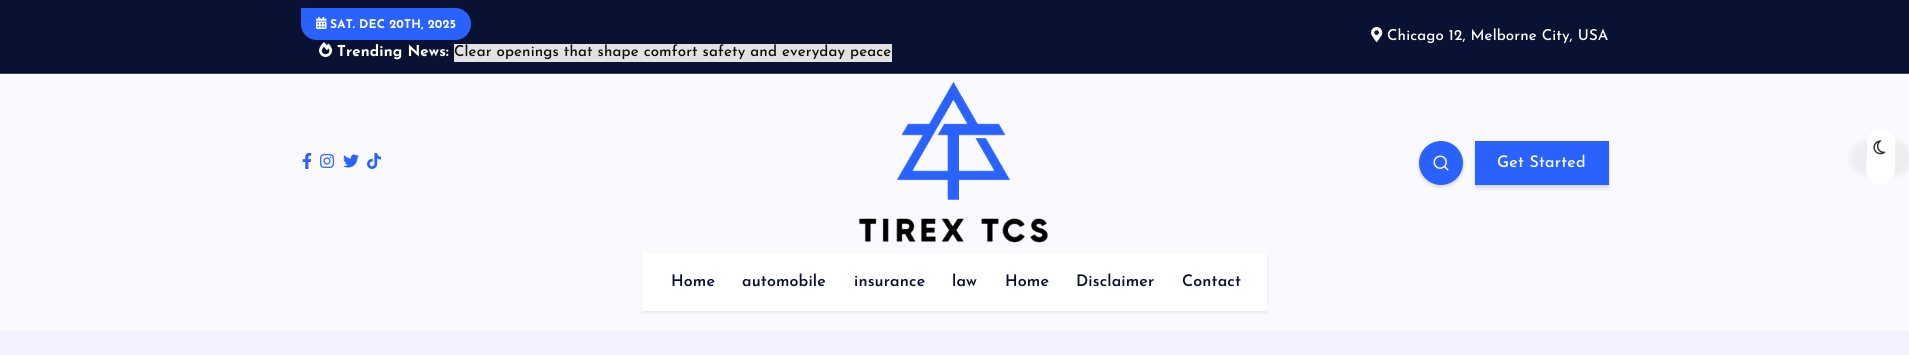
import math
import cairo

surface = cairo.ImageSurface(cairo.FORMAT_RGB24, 1909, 355)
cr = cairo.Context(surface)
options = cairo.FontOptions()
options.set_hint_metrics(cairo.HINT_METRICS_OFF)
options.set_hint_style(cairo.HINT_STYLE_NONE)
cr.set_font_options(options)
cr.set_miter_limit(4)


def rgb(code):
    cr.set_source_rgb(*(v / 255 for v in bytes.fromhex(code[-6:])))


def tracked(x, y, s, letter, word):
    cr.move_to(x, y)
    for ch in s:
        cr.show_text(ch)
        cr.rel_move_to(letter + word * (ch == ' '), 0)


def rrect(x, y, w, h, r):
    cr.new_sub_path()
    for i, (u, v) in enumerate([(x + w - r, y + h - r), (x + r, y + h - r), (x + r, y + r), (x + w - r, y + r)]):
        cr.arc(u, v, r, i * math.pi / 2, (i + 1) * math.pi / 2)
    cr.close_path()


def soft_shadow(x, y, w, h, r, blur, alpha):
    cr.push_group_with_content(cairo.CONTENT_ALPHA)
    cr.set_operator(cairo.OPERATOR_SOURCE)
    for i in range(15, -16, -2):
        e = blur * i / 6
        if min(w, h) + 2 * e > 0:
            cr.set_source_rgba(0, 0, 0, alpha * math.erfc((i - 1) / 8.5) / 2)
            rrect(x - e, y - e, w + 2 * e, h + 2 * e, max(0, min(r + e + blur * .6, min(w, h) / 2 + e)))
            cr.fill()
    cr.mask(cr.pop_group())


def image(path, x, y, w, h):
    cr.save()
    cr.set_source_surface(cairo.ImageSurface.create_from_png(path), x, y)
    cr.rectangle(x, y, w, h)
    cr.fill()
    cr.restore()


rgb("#f9f9fe")
cr.paint()
rgb("#0a1233")
cr.rectangle(0, 0, 1909, 73)
cr.fill()
rgb("#40455c")
cr.rectangle(0, 73, 1909, 1)
cr.fill()
rgb("#2962ff")
cr.new_path()
cr.move_to(301, 8)
cr.line_to(455, 8)
cr.curve_to(464, 8, 471, 15, 471, 24)
cr.curve_to(471, 33, 464, 40, 455, 40)
cr.line_to(317, 40)
cr.curve_to(308, 40, 301, 33, 301, 24)
cr.close_path()
cr.fill()
image("img/1.png", 316, 17, 11, 12)
image("img/2.png", 319, 42, 14, 15)
rgb("#e2e2e2")
cr.rectangle(454, 44, 438, 18)
cr.fill()
image("img/3.png", 1371, 27, 12, 15)
image("img/4.png", 302, 153, 10, 16)
image("img/5.png", 320, 154, 14, 14)
image("img/6.png", 343, 154, 16, 14)
image("img/7.png", 367, 153, 14, 16)
image("img/8.png", 859, 81, 189, 162)
rgb("#000000")
soft_shadow(1419, 143, 44, 44, 22, 2, 0.15)
rgb("#2962ff")
cr.arc(1441, 163, 22, 0, 2 * math.pi)
cr.fill()
image("img/9.png", 1433, 155, 16, 16)
rgb("#070a19")
soft_shadow(1476, 145, 132, 42, 0, 2.5, 0.2)
rgb("#2962ff")
cr.rectangle(1475, 141, 134, 44)
cr.fill()
rgb("#000000")
soft_shadow(642, 255, 625, 58, 0, 1.5, 0.07)
rgb("#ffffff")
cr.rectangle(642, 253, 625, 58)
cr.fill()
rgb("#f2f1fd")
cr.rectangle(0, 331, 1909, 24)
cr.fill()
rgb("#000000")
soft_shadow(1850, 141, 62, 35, 17.5, 2.5, 0.05)
rgb("#ffffff")
cr.new_path()
cr.move_to(1895, 143)
cr.line_to(1895, 170)
cr.curve_to(1895, 185, 1874, 190, 1868, 176)
cr.curve_to(1865, 170, 1867, 162, 1867, 156)
cr.line_to(1867, 143)
cr.curve_to(1867, 124, 1895, 124, 1895, 143)
cr.close_path()
cr.fill()
image("img/10.png", 1873, 140, 13, 15)
cr.select_font_face("Josefin Sans", cairo.FONT_SLANT_NORMAL, cairo.FONT_WEIGHT_BOLD)
cr.set_font_size(12)
tracked(330, 28, "SAT. DEC 20TH, 2025", 0.15, 0)
cr.set_font_size(15)
tracked(337, 56, "Trending News:", 0.15, 0)
cr.select_font_face("Josefin Sans Medium")
rgb("#0d0d0d")
tracked(454, 56, "Clear openings that shape comfort safety and everyday peace", 0.15, 0)
rgb("#ffffff")
tracked(1387, 40, "Chicago 12, Melborne City, USA", 0.15, 0)
cr.set_font_size(16)
tracked(1497, 167, "Get Started", 0.25, 0)
cr.select_font_face("Josefin Sans SemiBold")
rgb("#0a1233")
for x, y, s in [
    (671, 286, "Home"),
    (742, 286, "automobile"),
    (854, 286, "insurance"),
    (952, 286, "law"),
    (1005, 286, "Home"),
    (1076, 286, "Disclaimer"),
    (1182, 286, "Contact"),
]:
    tracked(x, y, s, 0.15, 0)
surface.write_to_png("page.png")
